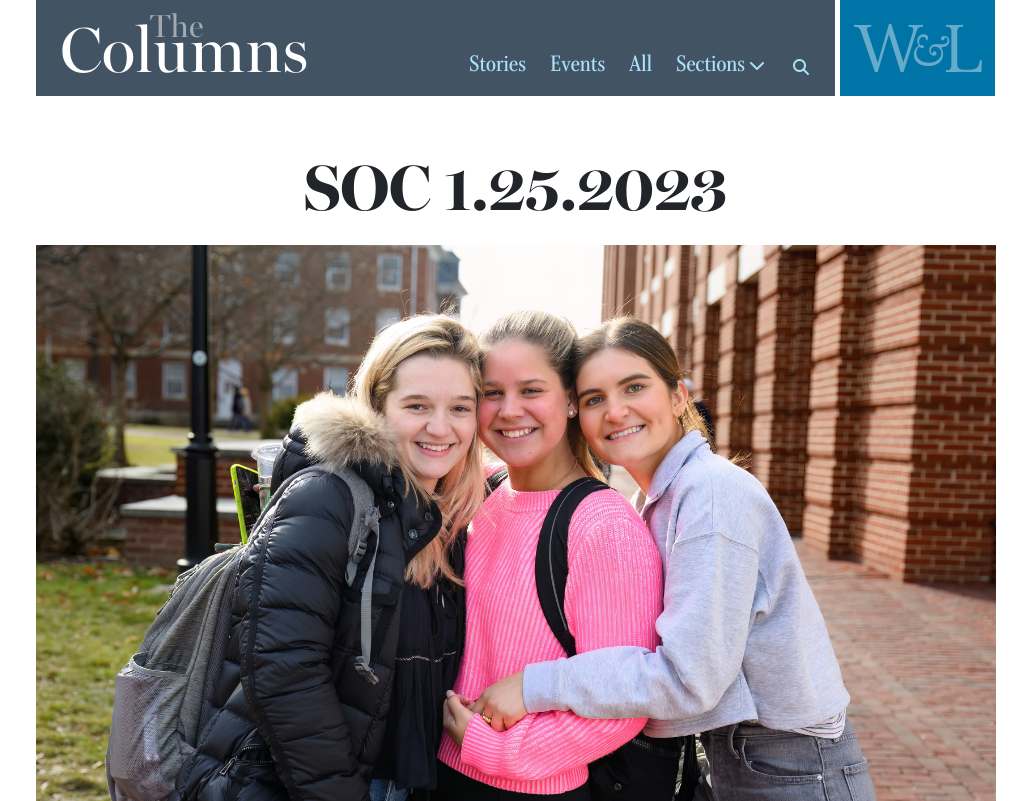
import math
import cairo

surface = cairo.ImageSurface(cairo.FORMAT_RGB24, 1031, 801)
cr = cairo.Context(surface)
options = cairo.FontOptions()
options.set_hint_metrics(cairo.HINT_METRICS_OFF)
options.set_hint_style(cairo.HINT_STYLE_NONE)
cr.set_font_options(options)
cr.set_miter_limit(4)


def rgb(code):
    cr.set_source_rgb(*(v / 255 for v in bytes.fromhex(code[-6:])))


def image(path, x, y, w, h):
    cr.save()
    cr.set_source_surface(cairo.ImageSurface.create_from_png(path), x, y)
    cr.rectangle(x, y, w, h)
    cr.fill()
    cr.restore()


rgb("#ffffff")
cr.paint()
rgb("#425363")
cr.rectangle(36, 0, 799, 96)
cr.fill()
image("img/1.png", 750, 62, 14, 8)
image("img/2.png", 793, 59, 16, 16)
rgb("#0074a7")
cr.rectangle(840, 0, 155, 96)
cr.fill()
image("img/3.png", 854, 24, 128, 48)
image("img/4.png", 36, 245, 960, 556)
cr.select_font_face("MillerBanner")
cr.set_font_size(64)
rgb("#ffffff")
cr.move_to(60, 72)
cr.show_text("Columns")
cr.set_font_size(32)
rgb("#a1a9b1")
cr.move_to(150, 37)
cr.show_text("The")
cr.select_font_face("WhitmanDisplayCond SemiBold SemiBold")
cr.set_font_size(24)
rgb("#abe1fa")
for x, y, s in [
    (469, 71, "Stories"),
    (550, 71, "Events"),
    (629, 71, "All"),
    (676, 71, "Sections"),
]:
    cr.move_to(x, y)
    cr.show_text(s)
cr.select_font_face("MillerBanner", cairo.FONT_SLANT_NORMAL, cairo.FONT_WEIGHT_BOLD)
cr.set_font_size(64)
rgb("#212529")
cr.move_to(304, 210)
cr.show_text("SOC 1.25.2023")
surface.write_to_png("page.png")
